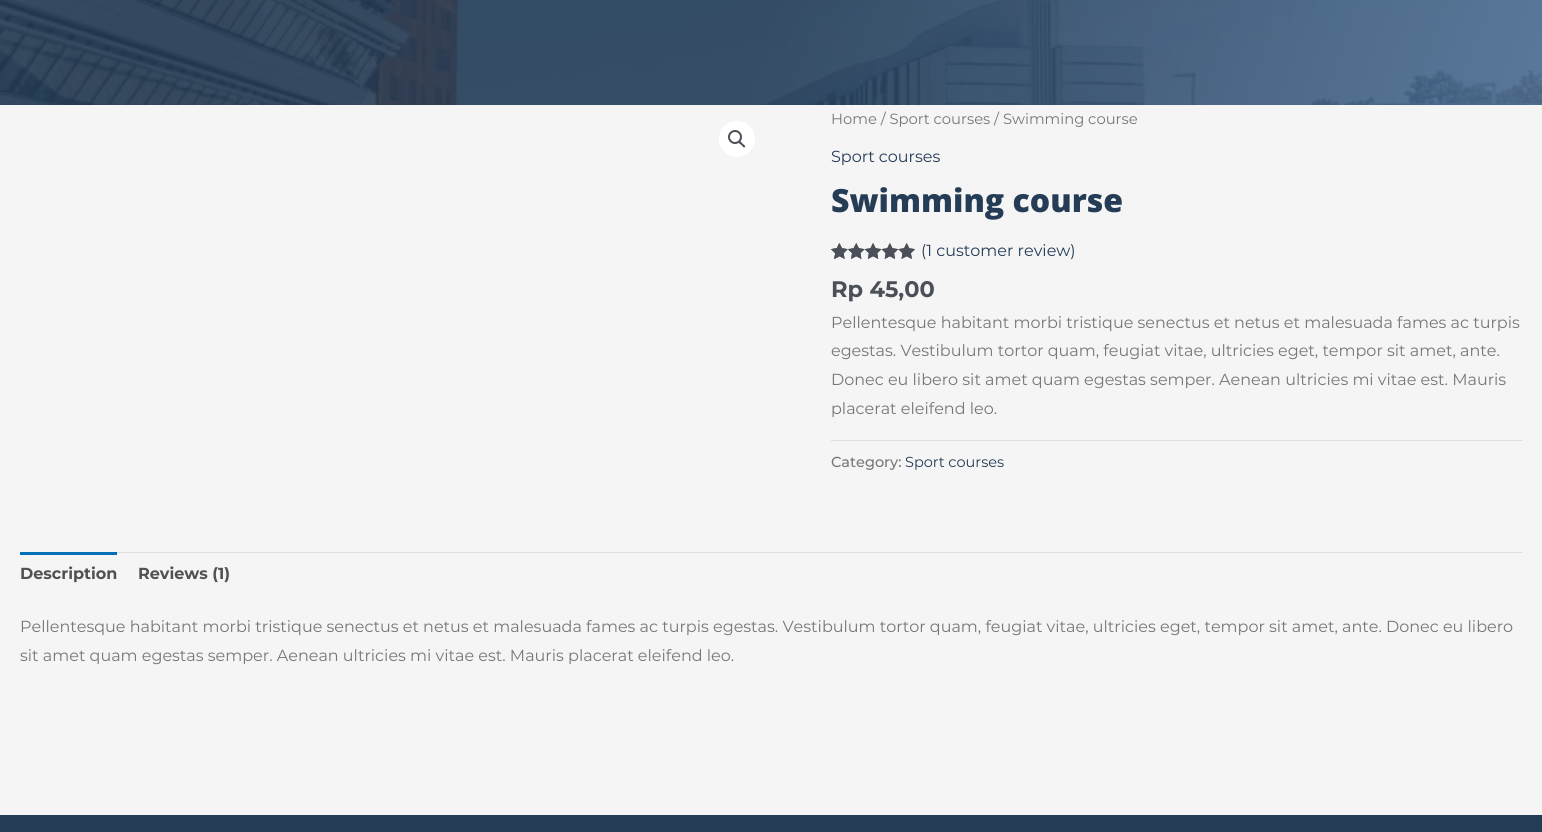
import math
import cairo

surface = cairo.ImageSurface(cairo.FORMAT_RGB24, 1542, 832)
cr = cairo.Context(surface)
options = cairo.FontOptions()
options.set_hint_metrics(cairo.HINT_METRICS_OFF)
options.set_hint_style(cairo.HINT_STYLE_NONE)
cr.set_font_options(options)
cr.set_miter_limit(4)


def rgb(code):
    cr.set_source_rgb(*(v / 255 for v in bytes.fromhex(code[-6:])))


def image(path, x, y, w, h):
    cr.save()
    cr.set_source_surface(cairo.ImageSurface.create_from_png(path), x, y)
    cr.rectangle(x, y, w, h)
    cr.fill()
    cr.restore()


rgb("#f5f5f5")
cr.paint()
image("img/1.png", 0, 0, 1542, 105)
rgb("#ffffff")
cr.arc(737, 139, 18, 0, 2 * math.pi)
cr.fill()
cr.arc(735, 137, 6, 0, 2 * math.pi)
rgb("#4b4f58")
cr.stroke()
cr.new_path()
cr.move_to(739, 141.5)
cr.curve_to(740.5, 140.5, 742, 143, 742.5, 143.5)
cr.curve_to(743.5, 144.5, 746, 146, 745, 147)
cr.curve_to(743.5, 148.5, 742, 145.5, 741.5, 145)
cr.curve_to(740.5, 144.5, 738, 143, 739, 141.5)
cr.close_path()
cr.fill()
image("img/2.png", 831, 243, 84, 16)
image("img/3.png", 831, 243, 84, 16)
image("img/4.png", 831, 244, 8, 15)
for x, y, w, h, color in [
    (831, 440, 691, 1, "#dddddd"),
    (117, 552, 1405, 1, "#dddddd"),
    (20, 552, 97, 3, "#0170b9"),
    (0, 815, 1542, 17, "#253c56"),
]:
    rgb(color)
    cr.rectangle(x, y, w, h)
    cr.fill()
cr.select_font_face("Montserrat")
cr.set_font_size(14.75)
rgb("#777777")
cr.move_to(831, 124)
cr.show_text("Home / Sport courses / Swimming course")
cr.set_font_size(16)
rgb("#253c56")
cr.move_to(831, 162)
cr.show_text("Sport courses")
cr.select_font_face("Open Sans ExtraBold")
cr.set_font_size(32)
cr.move_to(831, 212)
cr.show_text("Swimming course")
cr.select_font_face("Montserrat")
cr.set_font_size(16)
cr.move_to(921, 256)
cr.show_text("(1 customer review)")
cr.select_font_face("Montserrat", cairo.FONT_SLANT_NORMAL, cairo.FONT_WEIGHT_BOLD)
cr.set_font_size(22.5)
rgb("#4b4f58")
cr.move_to(831, 297)
cr.show_text("Rp 45,00")
cr.select_font_face("Montserrat")
cr.set_font_size(16)
rgb("#777777")
for x, y, s in [
    (831, 328, "Pellentesque habitant morbi tristique senectus et netus et malesuada fames ac turpis"),
    (831, 356, "egestas. Vestibulum tortor quam, feugiat vitae, ultricies eget, tempor sit amet, ante."),
    (831, 385, "Donec eu libero sit amet quam egestas semper. Aenean ultricies mi vitae est. Mauris"),
    (831, 414, "placerat eleifend leo."),
]:
    cr.move_to(x, y)
    cr.show_text(s)
cr.select_font_face("Montserrat Medium")
cr.set_font_size(14.5)
cr.move_to(831, 467)
cr.show_text("Category:")
cr.select_font_face("Montserrat")
rgb("#253c56")
cr.move_to(905, 467)
cr.show_text("Sport courses")
cr.select_font_face("Montserrat", cairo.FONT_SLANT_NORMAL, cairo.FONT_WEIGHT_BOLD)
cr.set_font_size(16)
rgb("#515151")
cr.move_to(20, 579)
cr.show_text("Description")
cr.move_to(138, 579)
cr.show_text("Reviews (1)")
cr.select_font_face("Montserrat")
rgb("#777777")
cr.move_to(20, 632)
cr.show_text("Pellentesque habitant morbi tristique senectus et netus et malesuada fames ac turpis egestas. Vestibulum tortor quam, feugiat vitae, ultricies eget, tempor sit amet, ante. Donec eu libero")
cr.move_to(20, 661)
cr.show_text("sit amet quam egestas semper. Aenean ultricies mi vitae est. Mauris placerat eleifend leo.")
surface.write_to_png("page.png")
